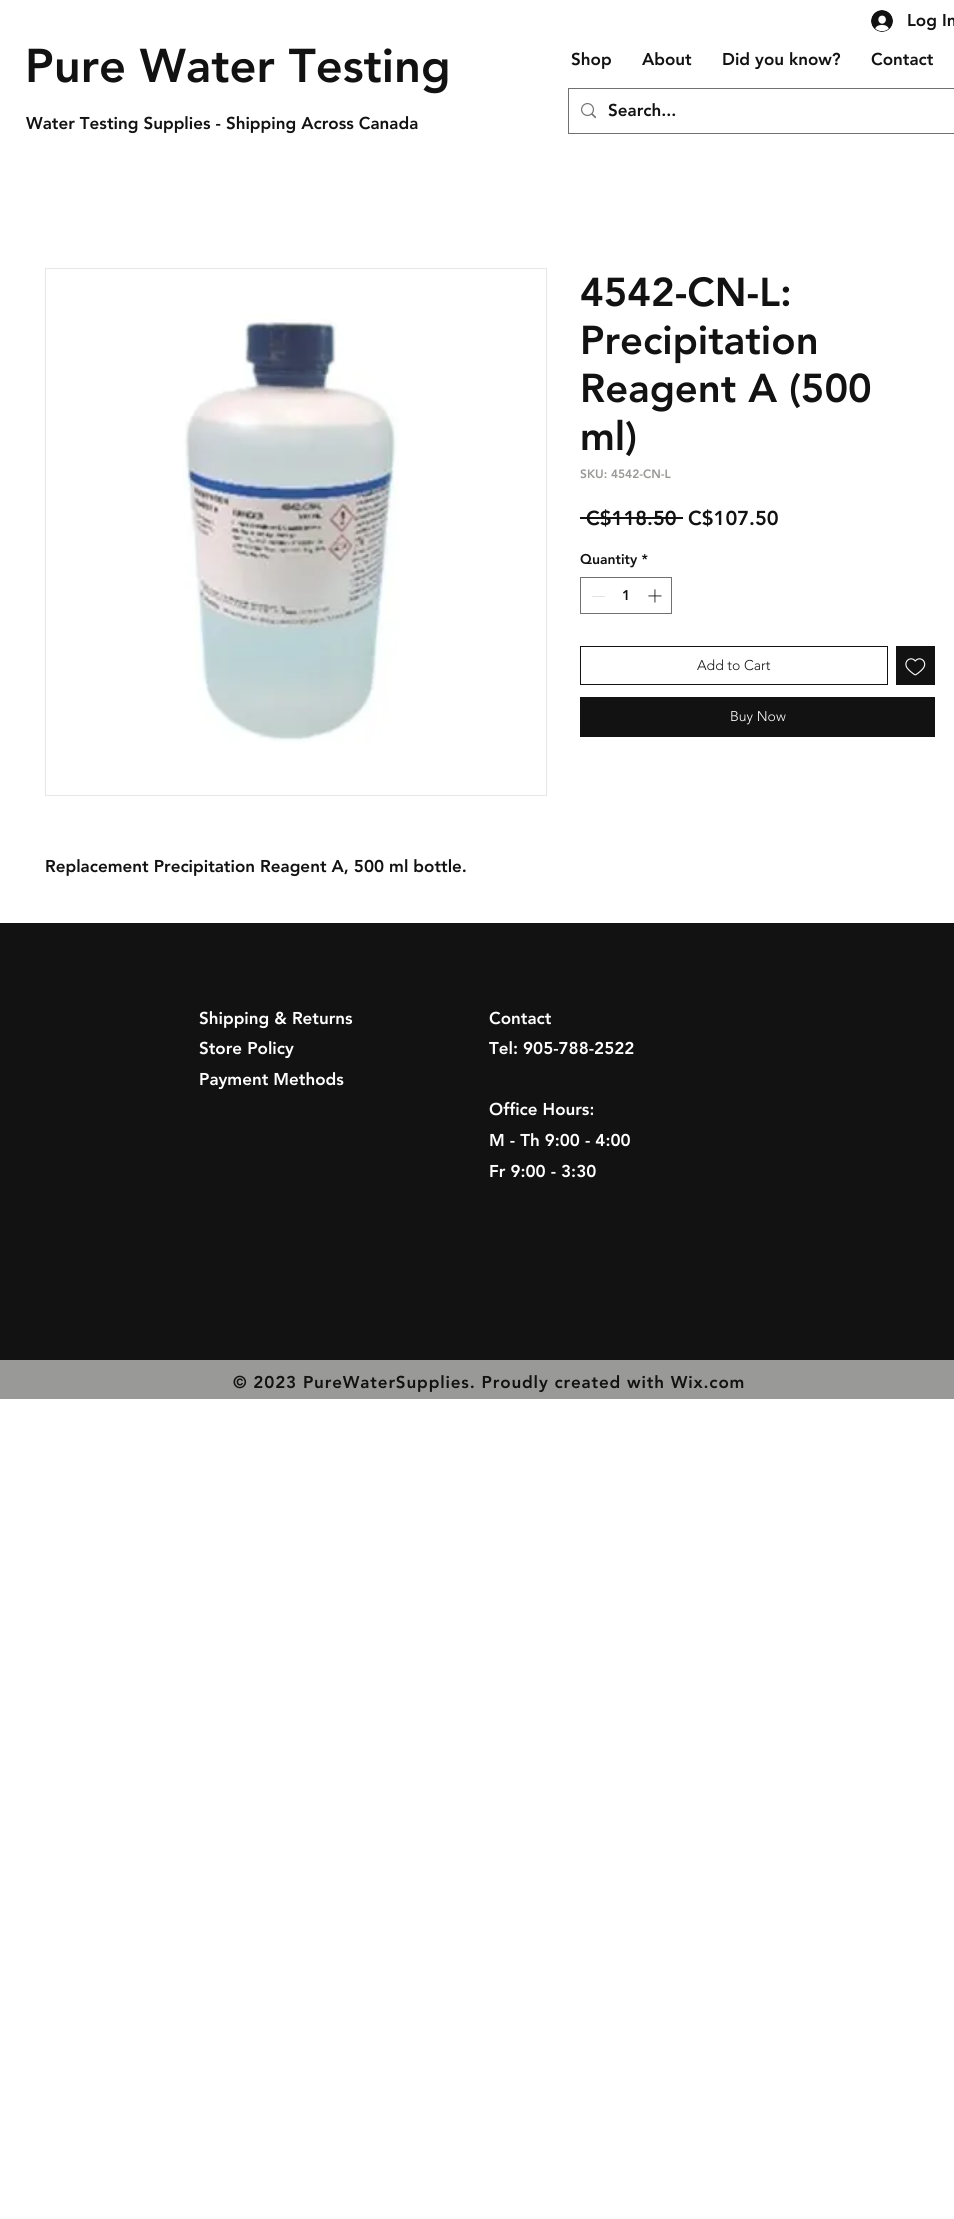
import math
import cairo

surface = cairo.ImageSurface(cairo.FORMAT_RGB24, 954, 2219)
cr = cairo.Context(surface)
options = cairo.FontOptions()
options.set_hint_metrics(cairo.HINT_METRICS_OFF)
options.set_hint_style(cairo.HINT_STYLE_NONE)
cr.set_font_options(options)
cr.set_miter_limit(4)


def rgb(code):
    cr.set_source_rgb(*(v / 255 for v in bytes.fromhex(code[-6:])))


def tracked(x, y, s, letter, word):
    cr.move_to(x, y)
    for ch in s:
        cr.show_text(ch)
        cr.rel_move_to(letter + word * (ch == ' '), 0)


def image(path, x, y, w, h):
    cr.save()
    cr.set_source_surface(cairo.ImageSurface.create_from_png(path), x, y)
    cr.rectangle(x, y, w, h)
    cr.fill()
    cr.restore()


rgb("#ffffff")
cr.paint()
image("img/1.png", 871, 10, 22, 22)
cr.rectangle(568.5, 88.5, 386, 45)
rgb("#717171")
cr.set_line_width(1)
cr.stroke()
image("img/2.png", 581, 103, 15, 16)
rgb("#121212")
cr.rectangle(580, 517, 103, 2)
cr.fill()
cr.rectangle(580.5, 577.5, 91, 36)
rgb("#717171")
cr.stroke()
rgb("#e3e3e3")
cr.rectangle(592, 596, 13, 1)
cr.fill()
image("img/3.png", 648, 589, 14, 14)
cr.rectangle(580.5, 646.5, 307, 38)
rgb("#121212")
cr.stroke()
cr.rectangle(896, 646, 39, 39)
cr.fill()
image("img/4.png", 905, 658, 21, 18)
cr.rectangle(580, 697, 355, 40)
cr.fill()
cr.rectangle(45.5, 268.5, 501, 527)
rgb("#e8e6e6")
cr.stroke()
image("img/5.png", 183, 314, 216, 429)
rgb("#121212")
cr.rectangle(0, 923, 954, 437)
cr.fill()
rgb("#999997")
cr.rectangle(0, 1360, 954, 39)
cr.fill()
cr.select_font_face("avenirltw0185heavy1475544 Black")
cr.set_font_size(17)
rgb("#121212")
cr.move_to(907, 26)
cr.show_text("Log In")
cr.set_font_size(47)
cr.move_to(25, 82)
cr.show_text("Pure Water Testing")
cr.set_font_size(17)
for x, y, s in [
    (571, 65, "Shop"),
    (642, 65, "About"),
    (722, 65, "Did you know?"),
    (871, 65, "Contact"),
    (608, 116, "Search..."),
    (26, 129, "Water Testing Supplies - Shipping Across Canada"),
]:
    cr.move_to(x, y)
    cr.show_text(s)
cr.set_font_size(40)
for x, y, s in [
    (580, 306, "4542-CN-L:"),
    (580, 354, "Precipitation"),
    (580, 402, "Reagent A (500"),
    (580, 450, "ml)"),
]:
    cr.move_to(x, y)
    cr.show_text(s)
cr.set_font_size(12)
rgb("#999997")
cr.move_to(580, 478)
cr.show_text("SKU: 4542-CN-L")
cr.set_font_size(20)
rgb("#121212")
cr.move_to(586, 525)
cr.show_text("C$118.50")
cr.move_to(688, 525)
cr.show_text("C$107.50")
cr.set_font_size(14)
cr.move_to(580, 564)
cr.show_text("Quantity *")
cr.move_to(622, 600)
cr.show_text("1")
cr.select_font_face("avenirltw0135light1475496 Light")
cr.move_to(697, 670)
cr.show_text("Add to Cart")
rgb("#ffffff")
cr.move_to(730, 721)
cr.show_text("Buy Now")
cr.select_font_face("avenirltw0185heavy1475544 Black")
cr.set_font_size(17)
rgb("#121212")
cr.move_to(45, 872)
cr.show_text("Replacement Precipitation Reagent A, 500 ml bottle.")
rgb("#ffffff")
for x, y, s in [
    (199, 1024, "Shipping & Returns"),
    (199, 1054, "Store Policy"),
    (199, 1085, "Payment Methods"),
    (489, 1024, "Contact"),
    (489, 1054, "Tel: 905-788-2522"),
    (489, 1115, "Office Hours:"),
    (489, 1146, "M - Th 9:00 - 4:00"),
    (489, 1177, "Fr 9:00 - 3:30"),
]:
    cr.move_to(x, y)
    cr.show_text(s)
rgb("#121212")
tracked(233, 1388, "© 2023 PureWaterSupplies. Proudly created with Wix.com", 0.85, 0)
surface.write_to_png("page.png")
